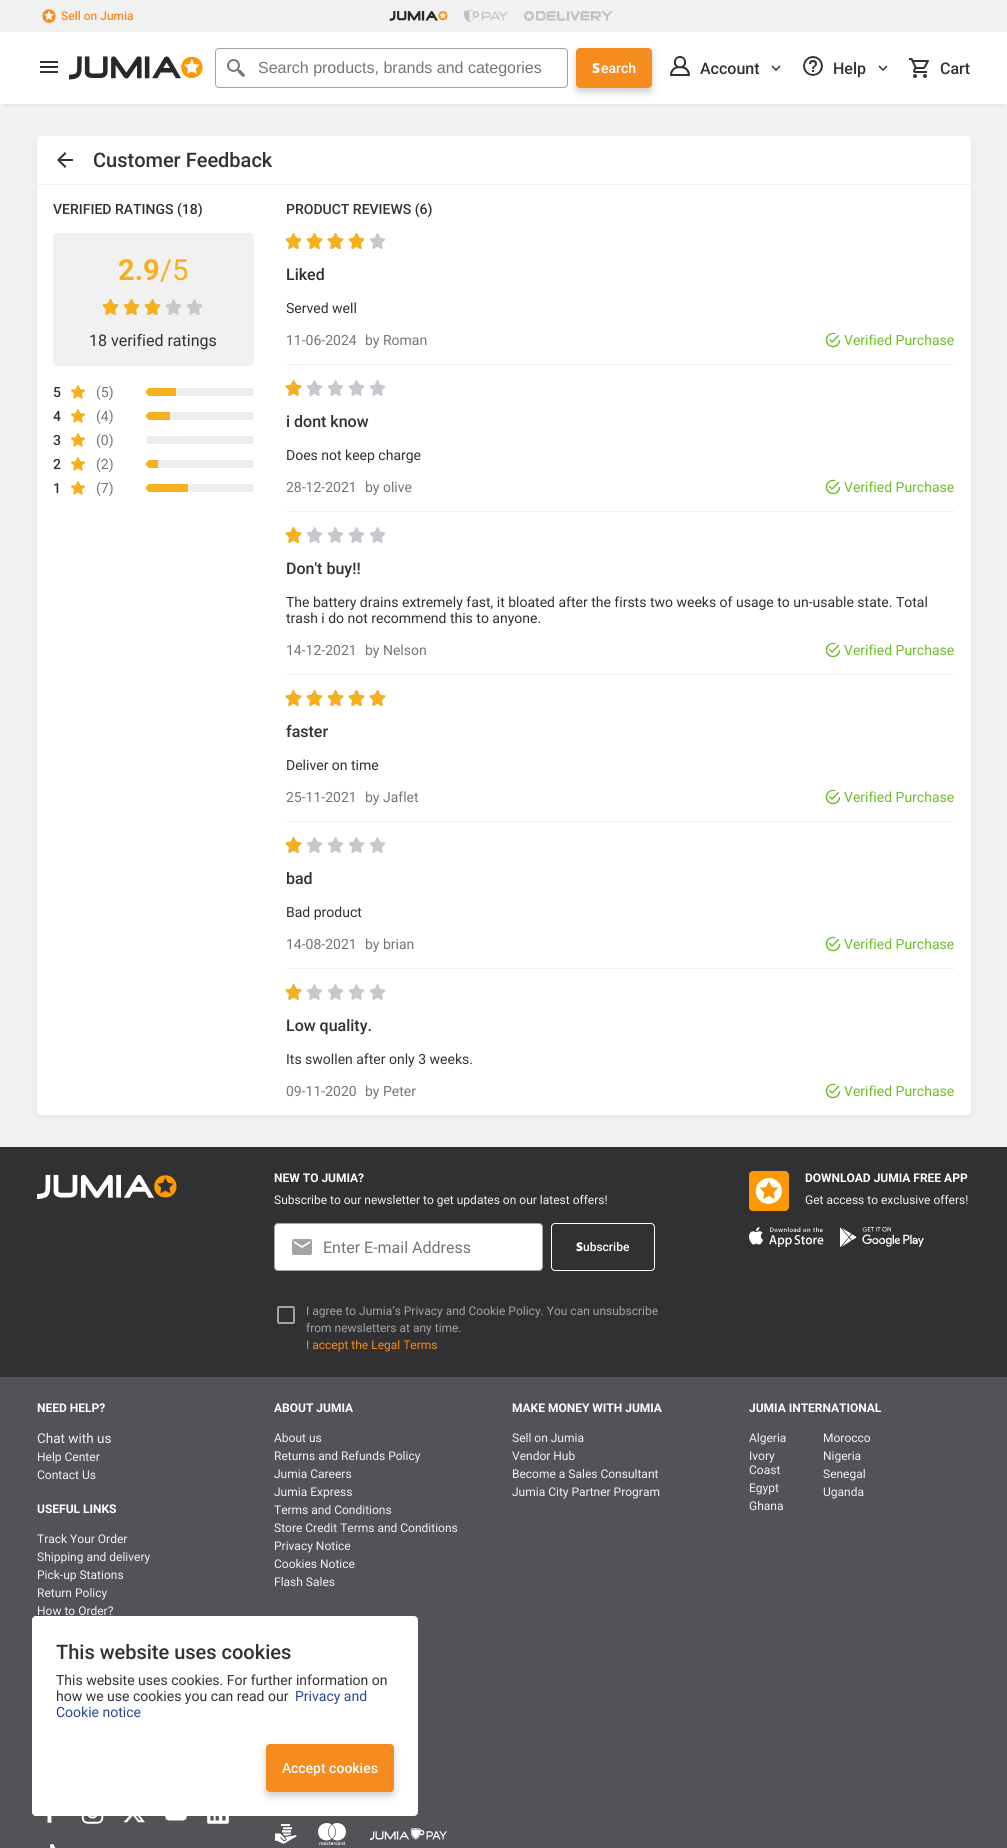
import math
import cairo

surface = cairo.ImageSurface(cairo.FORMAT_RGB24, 1007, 1848)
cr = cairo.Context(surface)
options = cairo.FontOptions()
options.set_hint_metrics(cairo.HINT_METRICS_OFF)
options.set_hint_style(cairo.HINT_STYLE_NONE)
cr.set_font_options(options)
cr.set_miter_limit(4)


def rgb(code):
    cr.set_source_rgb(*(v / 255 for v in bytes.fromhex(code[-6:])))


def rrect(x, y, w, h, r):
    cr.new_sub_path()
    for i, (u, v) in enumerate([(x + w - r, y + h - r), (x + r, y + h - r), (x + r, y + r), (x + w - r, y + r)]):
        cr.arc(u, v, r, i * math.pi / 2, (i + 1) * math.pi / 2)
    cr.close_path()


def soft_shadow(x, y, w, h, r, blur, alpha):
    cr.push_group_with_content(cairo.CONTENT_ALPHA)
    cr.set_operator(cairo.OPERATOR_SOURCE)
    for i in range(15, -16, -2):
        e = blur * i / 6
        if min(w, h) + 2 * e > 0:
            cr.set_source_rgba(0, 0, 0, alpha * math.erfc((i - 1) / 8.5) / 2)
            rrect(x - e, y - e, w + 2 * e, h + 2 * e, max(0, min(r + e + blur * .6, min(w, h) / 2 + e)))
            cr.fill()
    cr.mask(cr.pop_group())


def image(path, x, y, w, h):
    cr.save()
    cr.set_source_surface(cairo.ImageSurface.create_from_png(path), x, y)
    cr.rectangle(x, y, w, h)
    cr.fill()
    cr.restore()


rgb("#f1f1f2")
cr.paint()
image("img/1.png", 42, 9, 14, 14)
image("img/2.png", 389, 11, 59, 10)
image("img/3.png", 464, 10, 44, 12)
image("img/4.png", 524, 11, 89, 10)
rgb("#000000")
soft_shadow(4, 40, 999, 64, 0, 2, 0.12)
rgb("#ffffff")
cr.rectangle(0, 32, 1007, 72)
cr.fill()
image("img/5.png", 40, 61, 18, 12)
image("img/6.png", 69, 56, 134, 24)
rrect(215.5, 48.5, 352, 39, 3.5)
rgb("#a3a3a6")
cr.set_line_width(1)
cr.stroke()
image("img/7.png", 227, 59, 18, 18)
rgb("#000000")
soft_shadow(576, 52, 76, 40, 4, 4, 0.2)
rgb("#f68b1e")
rrect(576, 48, 76, 40, 4)
cr.fill()
image("img/8.png", 670, 56, 20, 20)
image("img/9.png", 771, 65, 10, 6)
image("img/10.png", 803, 56, 20, 20)
image("img/9.png", 878, 65, 10, 6)
image("img/11.png", 909, 58, 20, 20)
rgb("#000000")
soft_shadow(37, 138, 934, 979, 4, 2.5, 0.05)
rgb("#ffffff")
rrect(37, 136, 934, 979, 4)
cr.fill()
rgb("#f1f1f2")
cr.rectangle(37, 184, 934, 1)
cr.fill()
image("img/12.png", 57, 152, 16, 16)
rrect(53, 233, 201, 133, 4)
cr.fill()
image("img/13.png", 102, 299, 101, 16)
image("img/14.png", 102, 299, 59, 16)
image("img/15.png", 70, 385, 16, 14)
rgb("#f6b01e")
cr.new_path()
cr.move_to(150, 388)
cr.line_to(176, 388)
cr.line_to(176, 396)
cr.line_to(150, 396)
cr.curve_to(148, 396, 146, 394, 146, 392)
cr.curve_to(146, 390, 148, 388, 150, 388)
cr.close_path()
cr.fill()
rgb("#ededed")
cr.new_path()
cr.move_to(176, 388)
cr.line_to(250, 388)
cr.curve_to(252, 388, 254, 390, 254, 392)
cr.curve_to(254, 394, 252, 396, 250, 396)
cr.line_to(176, 396)
cr.close_path()
cr.fill()
image("img/15.png", 70, 409, 16, 14)
rgb("#f6b01e")
cr.new_path()
cr.move_to(150, 412)
cr.line_to(170, 412)
cr.line_to(170, 420)
cr.line_to(150, 420)
cr.curve_to(148, 420, 146, 418, 146, 416)
cr.curve_to(146, 414, 148, 412, 150, 412)
cr.close_path()
cr.fill()
rgb("#ededed")
cr.new_path()
cr.move_to(170, 412)
cr.line_to(250, 412)
cr.curve_to(252, 412, 254, 414, 254, 416)
cr.curve_to(254, 418, 252, 420, 250, 420)
cr.line_to(170, 420)
cr.close_path()
cr.fill()
image("img/15.png", 70, 433, 16, 14)
rrect(146, 436, 108, 8, 4)
cr.fill()
image("img/15.png", 70, 457, 16, 14)
rgb("#f6b01e")
cr.new_path()
cr.move_to(150, 460)
cr.line_to(158, 460)
cr.line_to(158, 468)
cr.line_to(150, 468)
cr.curve_to(148, 468, 146, 466, 146, 464)
cr.curve_to(146, 462, 148, 460, 150, 460)
cr.close_path()
cr.fill()
rgb("#ededed")
cr.new_path()
cr.move_to(158, 460)
cr.line_to(250, 460)
cr.curve_to(252, 460, 254, 462, 254, 464)
cr.curve_to(254, 466, 252, 468, 250, 468)
cr.line_to(158, 468)
cr.close_path()
cr.fill()
image("img/15.png", 70, 481, 16, 14)
rgb("#f6b01e")
cr.new_path()
cr.move_to(150, 484)
cr.line_to(188, 484)
cr.line_to(188, 492)
cr.line_to(150, 492)
cr.curve_to(148, 492, 146, 490, 146, 488)
cr.curve_to(146, 486, 148, 484, 150, 484)
cr.close_path()
cr.fill()
rgb("#ededed")
cr.new_path()
cr.move_to(188, 484)
cr.line_to(250, 484)
cr.curve_to(252, 484, 254, 486, 254, 488)
cr.curve_to(254, 490, 252, 492, 250, 492)
cr.line_to(188, 492)
cr.close_path()
cr.fill()
image("img/16.png", 285, 233, 101, 16)
image("img/17.png", 285, 233, 80, 16)
image("img/18.png", 825, 332, 16, 16)
rgb("#f1f1f2")
cr.rectangle(286, 364, 669, 1)
cr.fill()
image("img/16.png", 285, 380, 101, 16)
image("img/19.png", 285, 380, 17, 16)
image("img/18.png", 825, 479, 16, 16)
cr.rectangle(286, 511, 669, 1)
cr.fill()
image("img/16.png", 285, 527, 101, 16)
image("img/19.png", 285, 527, 17, 16)
image("img/18.png", 825, 642, 16, 16)
cr.rectangle(286, 674, 669, 1)
cr.fill()
image("img/16.png", 285, 690, 101, 16)
image("img/20.png", 285, 690, 101, 16)
image("img/18.png", 825, 789, 16, 16)
cr.rectangle(286, 821, 669, 1)
cr.fill()
image("img/16.png", 285, 837, 101, 16)
image("img/19.png", 285, 837, 17, 16)
image("img/18.png", 825, 936, 16, 16)
cr.rectangle(286, 968, 669, 1)
cr.fill()
image("img/16.png", 285, 984, 101, 16)
image("img/19.png", 285, 984, 17, 16)
image("img/18.png", 825, 1083, 16, 16)
rgb("#535357")
cr.rectangle(0, 1377, 1007, 471)
cr.fill()
rgb("#313133")
cr.rectangle(0, 1147, 1007, 230)
cr.fill()
image("img/21.png", 37, 1174, 140, 26)
rgb("#ffffff")
rrect(274.5, 1223.5, 268, 47, 3.5)
cr.fill_preserve()
rgb("#a3a3a6")
cr.stroke()
image("img/22.png", 292, 1239, 20, 16)
rrect(551.5, 1223.5, 103, 47, 3.5)
rgb("#ffffff")
cr.stroke()
rrect(278, 1307, 16, 16, 1)
rgb("#a3a3a6")
cr.set_line_width(2)
cr.stroke()
image("img/23.png", 749, 1171, 40, 40)
image("img/24.png", 749, 1227, 75, 20)
image("img/25.png", 840, 1227, 84, 20)
image("img/26.png", 47, 1816, 5, 7)
image("img/27.png", 81, 1816, 23, 8)
image("img/28.png", 123, 1816, 22, 7)
image("img/29.png", 165, 1816, 22, 5)
image("img/30.png", 207, 1816, 22, 8)
image("img/31.png", 50, 1844, 6, 4)
image("img/32.png", 275, 1824, 22, 20)
image("img/33.png", 318, 1823, 28, 22)
image("img/34.png", 370, 1828, 77, 12)
rgb("#ffffff")
rrect(32, 1616, 386, 200, 4)
cr.fill()
rgb("#000000")
soft_shadow(266, 1748, 128, 48, 4, 4, 0.2)
rgb("#f68b1e")
rrect(266, 1744, 128, 48, 4)
cr.fill()
cr.select_font_face("Roboto Medium")
cr.set_font_size(12)
cr.move_to(61, 20)
cr.show_text("Sell on Jumia")
cr.select_font_face("Liberation Sans")
cr.set_font_size(16)
rgb("#75757a")
cr.move_to(258, 73)
cr.show_text("Search products, brands and categories")
cr.select_font_face("Noto Sans Black")
cr.set_font_size(14)
rgb("#ffffff")
cr.move_to(592, 73)
cr.show_text("S")
cr.select_font_face("Roboto Medium")
cr.move_to(601, 73)
cr.show_text("earch")
cr.set_font_size(16)
rgb("#313133")
for x, y, s in [
    (700, 74, "Account"),
    (833, 74, "Help"),
    (940, 74, "Cart"),
]:
    cr.move_to(x, y)
    cr.show_text(s)
cr.set_font_size(20)
cr.move_to(93, 167)
cr.show_text("Customer Feedback")
cr.set_font_size(14)
cr.move_to(53, 214)
cr.show_text("VERIFIED RATINGS (18)")
cr.select_font_face("Roboto", cairo.FONT_SLANT_NORMAL, cairo.FONT_WEIGHT_BOLD)
cr.set_font_size(29)
rgb("#f6b01e")
cr.move_to(118, 280)
cr.show_text("2.9")
cr.select_font_face("Roboto")
cr.move_to(160, 280)
cr.show_text("/5")
cr.set_font_size(16)
rgb("#313133")
cr.move_to(89, 346)
cr.show_text("18 verified ratings")
cr.select_font_face("Roboto Medium")
cr.set_font_size(14)
cr.move_to(53, 397)
cr.show_text("5")
cr.select_font_face("Roboto")
rgb("#75757a")
cr.move_to(96, 397)
cr.show_text("(5)")
cr.select_font_face("Roboto Medium")
rgb("#313133")
cr.move_to(53, 421)
cr.show_text("4")
cr.select_font_face("Roboto")
rgb("#75757a")
cr.move_to(96, 421)
cr.show_text("(4)")
cr.select_font_face("Roboto Medium")
rgb("#313133")
cr.move_to(53, 445)
cr.show_text("3")
cr.select_font_face("Roboto")
rgb("#75757a")
cr.move_to(96, 445)
cr.show_text("(0)")
cr.select_font_face("Roboto Medium")
rgb("#313133")
cr.move_to(53, 469)
cr.show_text("2")
cr.select_font_face("Roboto")
rgb("#75757a")
cr.move_to(96, 469)
cr.show_text("(2)")
cr.select_font_face("Roboto Medium")
rgb("#313133")
cr.move_to(53, 493)
cr.show_text("1")
cr.select_font_face("Roboto")
rgb("#75757a")
cr.move_to(96, 493)
cr.show_text("(7)")
cr.select_font_face("Roboto Medium")
rgb("#313133")
cr.move_to(286, 214)
cr.show_text("PRODUCT REVIEWS (6)")
cr.set_font_size(16)
cr.move_to(286, 280)
cr.show_text("Liked")
cr.select_font_face("Roboto")
cr.set_font_size(14)
cr.move_to(286, 313)
cr.show_text("Served well")
rgb("#75757a")
cr.move_to(286, 345)
cr.show_text("11-06-2024")
cr.move_to(365, 345)
cr.show_text("by Roman")
rgb("#6dbd28")
cr.move_to(844, 345)
cr.show_text("Verified Purchase")
cr.select_font_face("Roboto Medium")
cr.set_font_size(16)
rgb("#313133")
cr.move_to(286, 427)
cr.show_text("i dont know")
cr.select_font_face("Roboto")
cr.set_font_size(14)
cr.move_to(286, 460)
cr.show_text("Does not keep charge")
rgb("#75757a")
cr.move_to(286, 492)
cr.show_text("28-12-2021")
cr.move_to(365, 492)
cr.show_text("by olive")
rgb("#6dbd28")
cr.move_to(844, 492)
cr.show_text("Verified Purchase")
cr.select_font_face("Roboto Medium")
cr.set_font_size(16)
rgb("#313133")
cr.move_to(286, 574)
cr.show_text("Don't buy!!")
cr.select_font_face("Roboto")
cr.set_font_size(14)
cr.move_to(286, 607)
cr.show_text("The battery drains extremely fast, it bloated after the firsts two weeks of usage to un-usable state. Total")
cr.move_to(286, 623)
cr.show_text("trash i do not recommend this to anyone.")
rgb("#75757a")
cr.move_to(286, 655)
cr.show_text("14-12-2021")
cr.move_to(365, 655)
cr.show_text("by Nelson")
rgb("#6dbd28")
cr.move_to(844, 655)
cr.show_text("Verified Purchase")
cr.select_font_face("Roboto Medium")
cr.set_font_size(16)
rgb("#313133")
cr.move_to(286, 737)
cr.show_text("faster")
cr.select_font_face("Roboto")
cr.set_font_size(14)
cr.move_to(286, 770)
cr.show_text("Deliver on time")
rgb("#75757a")
cr.move_to(286, 802)
cr.show_text("25-11-2021")
cr.move_to(365, 802)
cr.show_text("by Jaflet")
rgb("#6dbd28")
cr.move_to(844, 802)
cr.show_text("Verified Purchase")
cr.select_font_face("Roboto Medium")
cr.set_font_size(16)
rgb("#313133")
cr.move_to(286, 884)
cr.show_text("bad")
cr.select_font_face("Roboto")
cr.set_font_size(14)
cr.move_to(286, 917)
cr.show_text("Bad product")
rgb("#75757a")
cr.move_to(286, 949)
cr.show_text("14-08-2021")
cr.move_to(365, 949)
cr.show_text("by brian")
rgb("#6dbd28")
cr.move_to(844, 949)
cr.show_text("Verified Purchase")
cr.select_font_face("Roboto Medium")
cr.set_font_size(16)
rgb("#313133")
cr.move_to(286, 1031)
cr.show_text("Low quality.")
cr.select_font_face("Roboto")
cr.set_font_size(14)
cr.move_to(286, 1064)
cr.show_text("Its swollen after only 3 weeks.")
rgb("#75757a")
cr.move_to(286, 1096)
cr.show_text("09-11-2020")
cr.move_to(365, 1096)
cr.show_text("by Peter")
rgb("#6dbd28")
cr.move_to(844, 1096)
cr.show_text("Verified Purchase")
cr.select_font_face("Roboto", cairo.FONT_SLANT_NORMAL, cairo.FONT_WEIGHT_BOLD)
cr.set_font_size(12)
rgb("#ffffff")
cr.move_to(274, 1182)
cr.show_text("NEW TO JUMIA?")
cr.select_font_face("Roboto")
rgb("#f1f1f2")
cr.move_to(274, 1204)
cr.show_text("Subscribe to our newsletter to get updates on our latest offers!")
cr.set_font_size(16)
rgb("#75757a")
cr.move_to(323, 1253)
cr.show_text("Enter E-mail Address")
cr.select_font_face("Noto Sans Black")
cr.set_font_size(12)
rgb("#ffffff")
cr.move_to(576, 1251)
cr.show_text("S")
cr.select_font_face("Roboto Medium")
cr.move_to(583, 1251)
cr.show_text("ubscribe")
cr.select_font_face("Roboto")
rgb("#a3a3a6")
cr.move_to(306, 1315)
cr.show_text("I agree to Jumia’s Privacy and Cookie Policy. You can unsubscribe")
cr.move_to(306, 1332)
cr.show_text("from newsletters at any time.")
rgb("#f68b1e")
cr.move_to(306, 1349)
cr.show_text("I accept the Legal Terms")
cr.select_font_face("Roboto", cairo.FONT_SLANT_NORMAL, cairo.FONT_WEIGHT_BOLD)
rgb("#ffffff")
cr.move_to(805, 1182)
cr.show_text("DOWNLOAD JUMIA FREE APP")
cr.select_font_face("Roboto")
rgb("#f1f1f2")
cr.move_to(805, 1204)
cr.show_text("Get access to exclusive offers!")
cr.select_font_face("Roboto", cairo.FONT_SLANT_NORMAL, cairo.FONT_WEIGHT_BOLD)
rgb("#ffffff")
cr.move_to(37, 1412)
cr.show_text("NEED HELP?")
cr.select_font_face("Roboto")
cr.set_font_size(13.5)
rgb("#f1f1f2")
cr.move_to(37, 1443)
cr.show_text("Chat with us")
cr.set_font_size(12)
cr.move_to(37, 1461)
cr.show_text("Help Center")
cr.move_to(37, 1479)
cr.show_text("Contact Us")
cr.select_font_face("Roboto", cairo.FONT_SLANT_NORMAL, cairo.FONT_WEIGHT_BOLD)
rgb("#ffffff")
cr.move_to(37, 1513)
cr.show_text("USEFUL LINKS")
cr.select_font_face("Roboto")
rgb("#f1f1f2")
for x, y, s in [
    (37, 1543, "Track Your Order"),
    (37, 1561, "Shipping and delivery"),
    (37, 1579, "Pick-up Stations"),
    (37, 1597, "Return Policy"),
    (37, 1615, "How to Order?"),
]:
    cr.move_to(x, y)
    cr.show_text(s)
cr.select_font_face("Roboto", cairo.FONT_SLANT_NORMAL, cairo.FONT_WEIGHT_BOLD)
rgb("#ffffff")
cr.move_to(274, 1412)
cr.show_text("ABOUT JUMIA")
cr.select_font_face("Roboto")
rgb("#f1f1f2")
for x, y, s in [
    (274, 1442, "About us"),
    (274, 1460, "Returns and Refunds Policy"),
    (274, 1478, "Jumia Careers"),
    (274, 1496, "Jumia Express"),
    (274, 1514, "Terms and Conditions"),
    (274, 1532, "Store Credit Terms and Conditions"),
    (274, 1550, "Privacy Notice"),
    (274, 1568, "Cookies Notice"),
    (274, 1586, "Flash Sales"),
]:
    cr.move_to(x, y)
    cr.show_text(s)
cr.select_font_face("Roboto", cairo.FONT_SLANT_NORMAL, cairo.FONT_WEIGHT_BOLD)
rgb("#ffffff")
cr.move_to(512, 1412)
cr.show_text("MAKE MONEY WITH JUMIA")
cr.select_font_face("Roboto")
rgb("#f1f1f2")
for x, y, s in [
    (512, 1442, "Sell on Jumia"),
    (512, 1460, "Vendor Hub"),
    (512, 1478, "Become a Sales Consultant"),
    (512, 1496, "Jumia City Partner Program"),
]:
    cr.move_to(x, y)
    cr.show_text(s)
cr.select_font_face("Roboto", cairo.FONT_SLANT_NORMAL, cairo.FONT_WEIGHT_BOLD)
rgb("#ffffff")
cr.move_to(749, 1412)
cr.show_text("JUMIA INTERNATIONAL")
cr.select_font_face("Roboto")
rgb("#f1f1f2")
for x, y, s in [
    (749, 1442, "Algeria"),
    (749, 1460, "Ivory"),
    (749, 1474, "Coast"),
    (749, 1492, "Egypt"),
    (749, 1510, "Ghana"),
    (823, 1442, "Morocco"),
    (823, 1460, "Nigeria"),
    (823, 1478, "Senegal"),
    (823, 1496, "Uganda"),
]:
    cr.move_to(x, y)
    cr.show_text(s)
cr.select_font_face("Roboto Medium")
cr.set_font_size(20)
rgb("#313133")
cr.move_to(56, 1659)
cr.show_text("This website uses cookies")
cr.select_font_face("Roboto")
cr.set_font_size(14)
cr.move_to(56, 1685)
cr.show_text("This website uses cookies. For further information on")
cr.move_to(56, 1701)
cr.show_text("how we use cookies you can read our")
rgb("#264996")
cr.move_to(295, 1701)
cr.show_text("Privacy and")
cr.move_to(56, 1717)
cr.show_text("Cookie notice")
cr.select_font_face("Noto Sans Medium")
rgb("#ffffff")
cr.move_to(282, 1773)
cr.show_text("A")
cr.select_font_face("Roboto Medium")
cr.move_to(291, 1773)
cr.show_text("ccept cookies")
surface.write_to_png("page.png")
